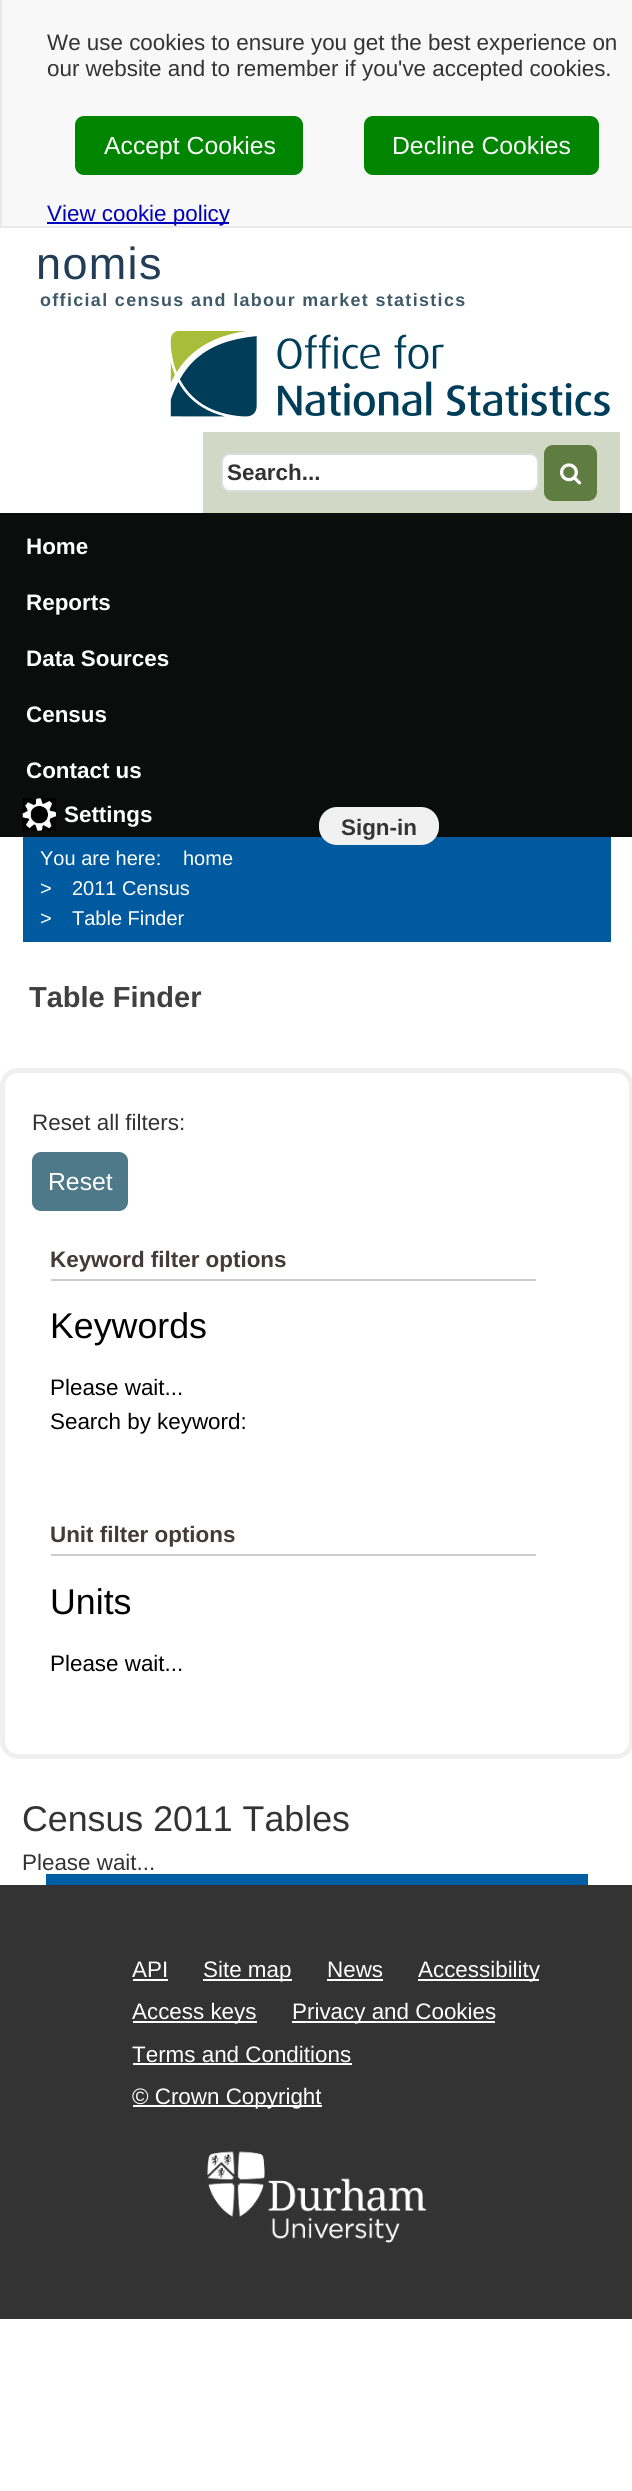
import math
import cairo

surface = cairo.ImageSurface(cairo.FORMAT_RGB24, 632, 2491)
cr = cairo.Context(surface)
options = cairo.FontOptions()
options.set_hint_metrics(cairo.HINT_METRICS_OFF)
options.set_hint_style(cairo.HINT_STYLE_NONE)
cr.set_font_options(options)
cr.set_miter_limit(4)


def rgb(code):
    cr.set_source_rgb(*(v / 255 for v in bytes.fromhex(code[-6:])))


def tracked(x, y, s, letter, word):
    cr.move_to(x, y)
    for ch in s:
        cr.show_text(ch)
        cr.rel_move_to(letter + word * (ch == ' '), 0)


def rrect(x, y, w, h, r):
    cr.new_sub_path()
    for i, (u, v) in enumerate([(x + w - r, y + h - r), (x + r, y + h - r), (x + r, y + r), (x + w - r, y + r)]):
        cr.arc(u, v, r, i * math.pi / 2, (i + 1) * math.pi / 2)
    cr.close_path()


def image(path, x, y, w, h):
    cr.save()
    cr.set_source_surface(cairo.ImageSurface.create_from_png(path), x, y)
    cr.rectangle(x, y, w, h)
    cr.fill()
    cr.restore()


rgb("#ffffff")
cr.paint()
for x, y, w, h, color in [
    (2, 0, 630, 226, "#f8f8f8"),
    (0, 226, 632, 2, "#e9e9e9"),
    (0, 0, 2, 228, "#e9e9e9"),
]:
    rgb(color)
    cr.rectangle(x, y, w, h)
    cr.fill()
rgb("#008500")
rrect(77, 118, 224, 55, 7)
cr.fill_preserve()
cr.set_line_width(4)
cr.stroke()
rrect(366, 118, 231, 55, 7)
cr.fill_preserve()
cr.stroke()
rgb("#0000bb")
cr.rectangle(47, 222, 182, 2)
cr.fill()
image("img/1.png", 170, 331, 440, 86)
rgb("#d1d9c6")
cr.rectangle(203, 432, 417, 81)
cr.fill()
rgb("#ffffff")
rrect(222, 454, 316, 37, 8)
cr.fill_preserve()
rgb("#dddddd")
cr.set_line_width(2)
cr.stroke()
rgb("#5f7d41")
rrect(544, 445, 53, 56, 9)
cr.fill()
image("img/2.png", 560, 463, 22, 22)
rgb("#0b0c0c")
cr.rectangle(0, 513, 632, 324)
cr.fill()
rgb("#005aa0")
cr.rectangle(23, 837, 588, 105)
cr.fill()
rgb("#f1f1f1")
rrect(319, 807, 120, 38, 18)
cr.fill()
image("img/3.png", 22, 798, 34, 33)
rrect(2.5, 1070.5, 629, 686, 15.5)
rgb("#efefef")
cr.set_line_width(5)
cr.stroke()
rgb("#4e7988")
rrect(34, 1154, 92, 55, 7)
cr.fill_preserve()
cr.set_line_width(4)
cr.stroke()
for x, y, w, h, color in [
    (51, 1279, 485, 2, "#cccccc"),
    (51, 1554, 485, 2, "#cccccc"),
    (46, 1874, 542, 11, "#005ea5"),
    (0, 1885, 632, 434, "#333333"),
    (133, 1979, 35, 2, "#ffffff"),
    (203, 1979, 89, 2, "#ffffff"),
    (327, 1979, 56, 2, "#ffffff"),
    (418, 1979, 121, 2, "#ffffff"),
    (133, 2021, 124, 2, "#ffffff"),
    (292, 2021, 203, 2, "#ffffff"),
    (133, 2063, 219, 2, "#ffffff"),
    (133, 2105, 189, 2, "#ffffff"),
]:
    rgb(color)
    cr.rectangle(x, y, w, h)
    cr.fill()
image("img/4.png", 207, 2151, 220, 92)
cr.select_font_face("Liberation Sans")
cr.set_font_size(22.4)
rgb("#333333")
cr.move_to(47, 50)
cr.show_text("We use cookies to ensure you get the best experience on")
cr.move_to(47, 76)
cr.show_text("our website and to remember if you've accepted cookies.")
cr.set_font_size(24.75)
rgb("#ffffff")
cr.move_to(104, 154)
cr.show_text("Accept Cookies")
cr.move_to(392, 154)
cr.show_text("Decline Cookies")
cr.set_font_size(22.4)
rgb("#0000bb")
cr.move_to(47, 221)
cr.show_text("View cookie policy")
cr.set_font_size(45)
rgb("#223d56")
tracked(36, 279, "nomis", 1.35, 0)
cr.select_font_face("Liberation Sans", cairo.FONT_SLANT_NORMAL, cairo.FONT_WEIGHT_BOLD)
cr.set_font_size(17.9)
rgb("#3e5968")
tracked(40, 306, "official census and labour market statistics", 1.35, 0)
cr.set_font_size(22.4)
rgb("#333333")
cr.move_to(227, 480)
cr.show_text("Search...")
rgb("#ffffff")
for x, y, s in [
    (26, 554, "Home"),
    (26, 610, "Reports"),
    (26, 666, "Data Sources"),
    (26, 722, "Census"),
    (26, 778, "Contact us"),
]:
    cr.move_to(x, y)
    cr.show_text(s)
rgb("#333333")
cr.move_to(341, 835)
cr.show_text("Sign-in")
rgb("#ffffff")
cr.move_to(64, 822)
cr.show_text("Settings")
cr.select_font_face("Liberation Sans")
cr.set_font_size(20)
for x, y, s in [
    (40, 865, "You are here:"),
    (183, 865, "home"),
    (40, 895, ">"),
    (72, 895, "2011 Census"),
    (40, 925, ">"),
    (72, 925, "Table Finder"),
]:
    cr.move_to(x, y)
    cr.show_text(s)
cr.select_font_face("Liberation Sans", cairo.FONT_SLANT_NORMAL, cairo.FONT_WEIGHT_BOLD)
cr.set_font_size(29)
rgb("#404040")
cr.move_to(29, 1007)
cr.show_text("Table Finder")
cr.select_font_face("Liberation Sans")
cr.set_font_size(22.4)
rgb("#333333")
cr.move_to(32, 1130)
cr.show_text("Reset all filters:")
cr.set_font_size(24.75)
rgb("#ffffff")
cr.move_to(48, 1190)
cr.show_text("Reset")
cr.select_font_face("Liberation Sans", cairo.FONT_SLANT_NORMAL, cairo.FONT_WEIGHT_BOLD)
cr.set_font_size(22.4)
rgb("#443a3a")
cr.move_to(50, 1267)
cr.show_text("Keyword filter options")
cr.select_font_face("Liberation Sans")
cr.set_font_size(35.75)
rgb("#000000")
cr.move_to(50, 1338)
cr.show_text("Keywords")
cr.set_font_size(22.4)
cr.move_to(50, 1395)
cr.show_text("Please wait...")
cr.move_to(50, 1429)
cr.show_text("Search by keyword:")
cr.select_font_face("Liberation Sans", cairo.FONT_SLANT_NORMAL, cairo.FONT_WEIGHT_BOLD)
rgb("#443a3a")
cr.move_to(50, 1542)
cr.show_text("Unit filter options")
cr.select_font_face("Liberation Sans")
cr.set_font_size(35.75)
rgb("#000000")
cr.move_to(50, 1614)
cr.show_text("Units")
cr.set_font_size(22.4)
cr.move_to(50, 1671)
cr.show_text("Please wait...")
cr.set_font_size(35.75)
rgb("#333333")
cr.move_to(22, 1831)
cr.show_text("Census 2011 Tables")
cr.set_font_size(22.4)
cr.move_to(22, 1870)
cr.show_text("Please wait...")
rgb("#ffffff")
for x, y, s in [
    (132, 1977, "API"),
    (203, 1977, "Site map"),
    (327, 1977, "News"),
    (418, 1977, "Accessibility"),
    (132, 2019, "Access keys"),
    (292, 2019, "Privacy and Cookies"),
    (132, 2062, "Terms and Conditions"),
    (132, 2104, "© Crown Copyright"),
]:
    cr.move_to(x, y)
    cr.show_text(s)
surface.write_to_png("page.png")
